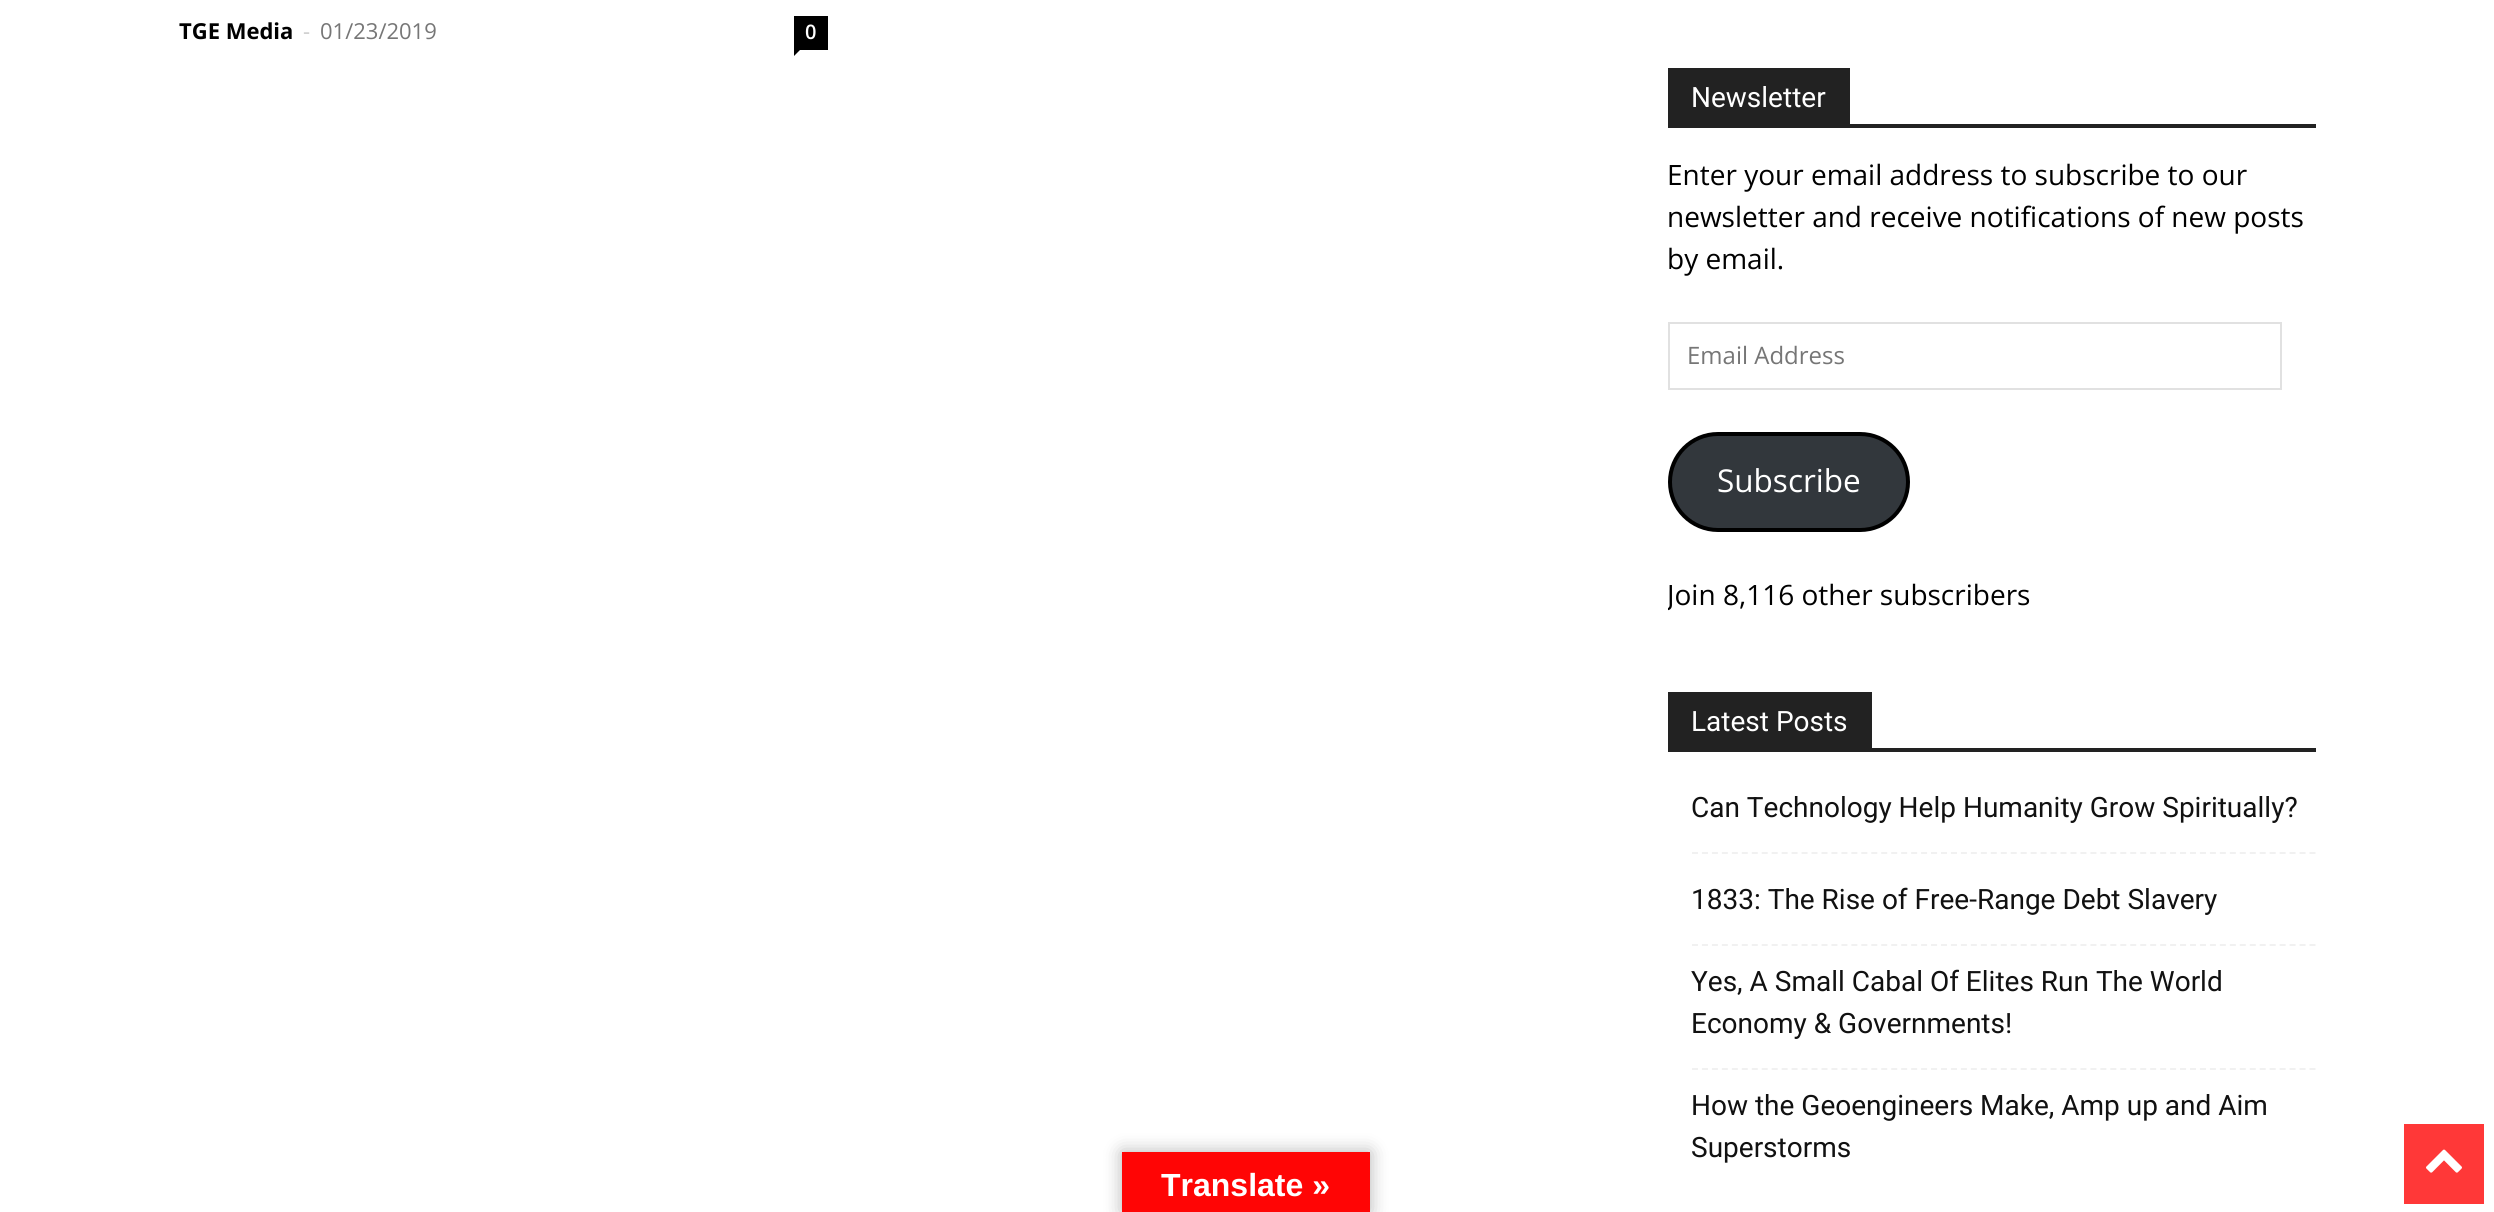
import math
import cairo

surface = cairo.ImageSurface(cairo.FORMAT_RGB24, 2494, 1212)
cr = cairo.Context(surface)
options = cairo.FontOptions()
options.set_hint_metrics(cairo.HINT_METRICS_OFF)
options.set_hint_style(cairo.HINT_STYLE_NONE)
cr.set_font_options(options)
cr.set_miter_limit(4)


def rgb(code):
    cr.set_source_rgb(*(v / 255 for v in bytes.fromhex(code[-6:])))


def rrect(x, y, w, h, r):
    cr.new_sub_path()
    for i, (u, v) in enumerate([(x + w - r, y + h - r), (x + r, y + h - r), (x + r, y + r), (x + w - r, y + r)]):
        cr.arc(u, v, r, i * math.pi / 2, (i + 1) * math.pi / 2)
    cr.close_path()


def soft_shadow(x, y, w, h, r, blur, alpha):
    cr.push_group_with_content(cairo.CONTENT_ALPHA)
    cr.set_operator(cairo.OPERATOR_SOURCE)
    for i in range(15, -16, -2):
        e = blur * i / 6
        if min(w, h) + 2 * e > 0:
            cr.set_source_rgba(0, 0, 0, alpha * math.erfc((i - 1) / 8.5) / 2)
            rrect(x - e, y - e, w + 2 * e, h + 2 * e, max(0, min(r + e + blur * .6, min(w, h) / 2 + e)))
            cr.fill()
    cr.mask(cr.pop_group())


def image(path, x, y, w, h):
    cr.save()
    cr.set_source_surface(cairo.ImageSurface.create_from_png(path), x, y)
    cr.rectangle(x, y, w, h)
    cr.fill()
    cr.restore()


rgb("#ffffff")
cr.paint()
rgb("#000000")
cr.rectangle(794, 16, 34, 34)
cr.fill()
cr.new_path()
cr.move_to(794, 50)
cr.line_to(800, 50)
cr.line_to(794, 56)
cr.close_path()
cr.fill()
rgb("#222222")
cr.rectangle(1668, 124, 648, 4)
cr.fill()
cr.rectangle(1668, 68, 182, 56)
cr.fill()
cr.rectangle(1669, 323, 612, 66)
rgb("#e1e1e1")
cr.stroke()
rgb("#32373c")
rrect(1670, 434, 238, 96, 48)
cr.fill_preserve()
rgb("#000000")
cr.set_line_width(4)
cr.stroke()
rgb("#222222")
cr.rectangle(1668, 748, 648, 4)
cr.fill()
cr.rectangle(1668, 692, 204, 56)
cr.fill()
cr.new_path()
cr.move_to(1692, 853)
cr.line_to(2316, 853)
rgb("#f1f1f1")
cr.set_line_width(2)
cr.set_dash([6, 3.96])
cr.stroke()
cr.new_path()
cr.move_to(1692, 945)
cr.line_to(2316, 945)
cr.stroke()
cr.new_path()
cr.move_to(1692, 1069)
cr.line_to(2316, 1069)
cr.stroke()
rgb("#ff3838")
cr.rectangle(2404, 1124, 80, 80)
cr.fill()
image("img/1.png", 2426, 1149, 36, 24)
rgb("#000000")
soft_shadow(1122, 1152, 248, 60, 0, 9, 0.3)
rgb("#ff0505")
cr.rectangle(1122, 1152, 248, 60)
cr.fill()
cr.select_font_face("Open Sans", cairo.FONT_SLANT_NORMAL, cairo.FONT_WEIGHT_BOLD)
cr.set_font_size(22)
rgb("#000000")
cr.move_to(179, 39)
cr.show_text("TGE Media")
cr.select_font_face("Open Sans")
rgb("#cccccc")
cr.move_to(303, 39)
cr.show_text("-")
rgb("#767676")
cr.move_to(320, 39)
cr.show_text("01/23/2019")
cr.select_font_face("Open Sans SemiBold")
cr.set_font_size(20)
rgb("#ffffff")
cr.move_to(805, 39)
cr.show_text("0")
cr.select_font_face("Roboto")
cr.set_font_size(28)
cr.move_to(1691, 107)
cr.show_text("Newsletter")
cr.select_font_face("Open Sans")
rgb("#000000")
for x, y, s in [
    (1667, 185, "Enter your email address to subscribe to our"),
    (1667, 227, "newsletter and receive notifications of new posts"),
    (1667, 269, "by email."),
]:
    cr.move_to(x, y)
    cr.show_text(s)
cr.set_font_size(24)
rgb("#767676")
cr.move_to(1687, 364)
cr.show_text("Email Address")
cr.set_font_size(31.5)
rgb("#ffffff")
cr.move_to(1717, 492)
cr.show_text("Subscribe")
cr.save()
cr.rectangle(1668, 68, 648, 548)
cr.clip()
cr.set_font_size(28)
rgb("#000000")
cr.move_to(1667, 605)
cr.show_text("Join 8,116 other subscribers")
cr.restore()
cr.select_font_face("Roboto")
cr.set_font_size(28)
cr.move_to(1691, 731)
cr.show_text("Latest Posts")
rgb("#111111")
for x, y, s in [
    (1691, 817, "Can Technology Help Humanity Grow Spiritually?"),
    (1691, 909, "1833: The Rise of Free-Range Debt Slavery"),
    (1691, 991, "Yes, A Small Cabal Of Elites Run The World"),
    (1691, 1033, "Economy & Governments!"),
    (1691, 1115, "How the Geoengineers Make, Amp up and Aim"),
    (1691, 1157, "Superstorms"),
]:
    cr.move_to(x, y)
    cr.show_text(s)
cr.select_font_face("Liberation Sans", cairo.FONT_SLANT_NORMAL, cairo.FONT_WEIGHT_BOLD)
cr.set_font_size(32)
rgb("#ffffff")
cr.move_to(1161, 1196)
cr.show_text("Translate »")
surface.write_to_png("page.png")
